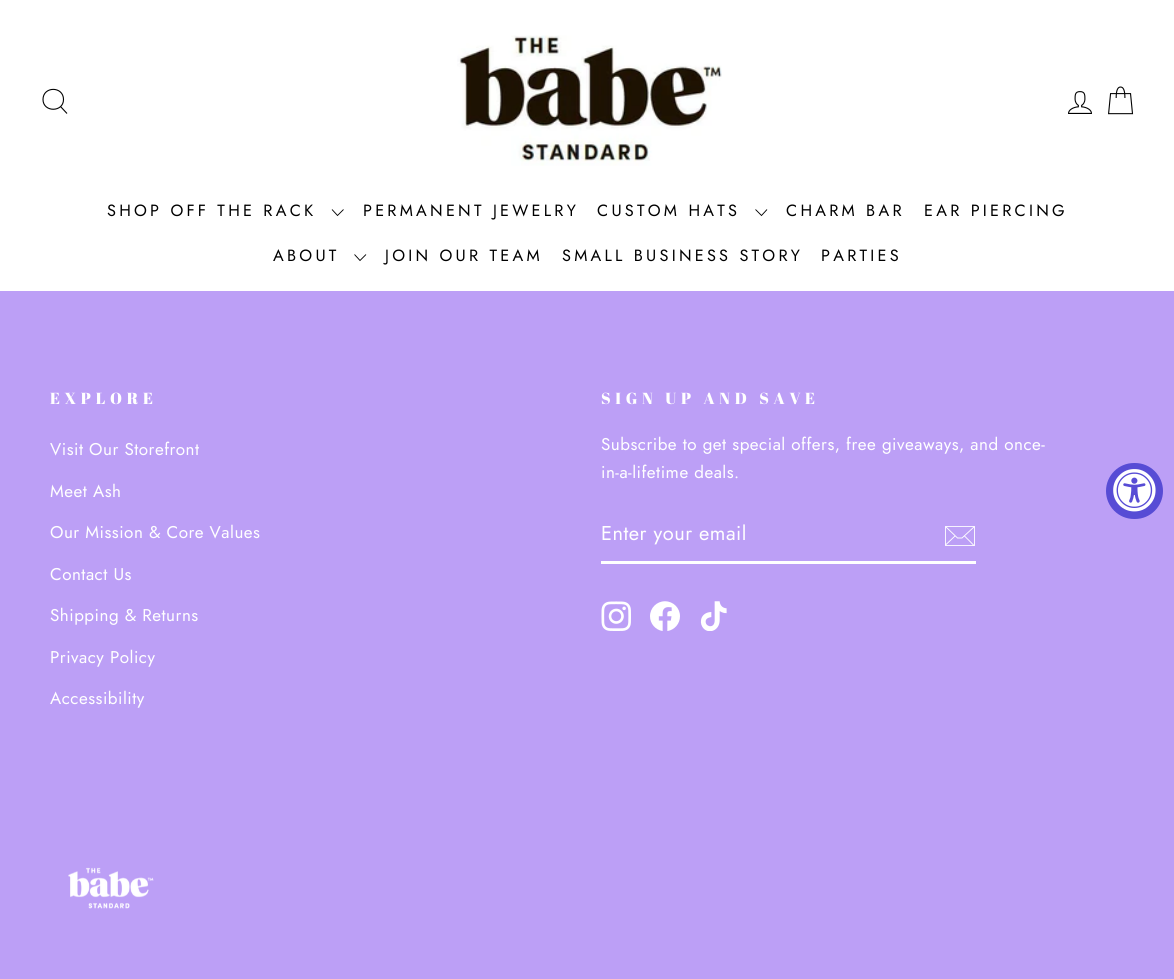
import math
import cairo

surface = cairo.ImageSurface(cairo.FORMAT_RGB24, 1174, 979)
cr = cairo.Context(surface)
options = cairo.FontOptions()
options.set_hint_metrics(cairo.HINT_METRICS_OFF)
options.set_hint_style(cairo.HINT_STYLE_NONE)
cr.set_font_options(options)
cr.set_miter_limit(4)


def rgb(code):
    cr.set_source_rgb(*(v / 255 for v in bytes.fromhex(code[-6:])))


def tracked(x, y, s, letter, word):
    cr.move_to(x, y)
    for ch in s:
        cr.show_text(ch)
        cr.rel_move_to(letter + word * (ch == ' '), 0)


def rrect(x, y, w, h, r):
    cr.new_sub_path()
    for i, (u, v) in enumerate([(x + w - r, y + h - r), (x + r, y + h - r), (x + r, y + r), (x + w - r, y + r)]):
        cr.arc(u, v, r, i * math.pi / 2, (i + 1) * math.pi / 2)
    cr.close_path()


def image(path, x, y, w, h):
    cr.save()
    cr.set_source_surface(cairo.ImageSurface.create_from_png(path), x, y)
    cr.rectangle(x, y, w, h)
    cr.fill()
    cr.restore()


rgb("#bc9ff6")
cr.paint()
rgb("#ffffff")
cr.rectangle(0, 0, 1174, 291)
cr.fill()
cr.new_path()
cr.move_to(63.5, 99.5)
cr.curve_to(63.5, 112.5, 43, 112.5, 43, 99.5)
cr.curve_to(43, 86, 63.5, 86, 63.5, 99.5)
cr.close_path()
cr.move_to(67, 113.5)
cr.line_to(60.5, 106.5)
rgb("#000000")
cr.set_line_width(1.1)
cr.stroke()
image("img/1.png", 457, 35, 265, 131)
image("img/2.png", 1068, 91, 24, 23)
image("img/3.png", 1108, 86, 26, 29)
cr.new_path()
cr.move_to(332, 209.5)
cr.line_to(337.5, 215.5)
cr.line_to(343.5, 209.5)
cr.set_line_width(0.9)
cr.stroke()
cr.new_path()
cr.move_to(755.5, 209.5)
cr.line_to(761.5, 215.5)
cr.line_to(767, 209.5)
cr.stroke()
cr.new_path()
cr.move_to(354.5, 254.5)
cr.line_to(360, 260.5)
cr.line_to(366, 254.5)
cr.stroke()
rgb("#ffffff")
cr.rectangle(601, 561, 375, 3)
cr.fill()
cr.new_path()
cr.move_to(974.5, 545.5)
cr.line_to(945.5, 545.5)
cr.line_to(945.5, 526.5)
cr.line_to(974.5, 526.5)
cr.close_path()
cr.move_to(945.5, 526.5)
cr.line_to(957.5, 538)
cr.line_to(962, 538)
cr.line_to(974.5, 526.5)
cr.move_to(955, 536)
cr.line_to(945.5, 545)
cr.move_to(974, 545.5)
cr.line_to(964.5, 536)
cr.stroke()
image("img/4.png", 601, 601, 30, 30)
image("img/5.png", 650, 601, 30, 30)
image("img/6.png", 700, 601, 27, 30)
image("img/7.png", 68, 867, 86, 42)
rgb("#574cd5")
rrect(1106, 463, 57, 56, 28)
cr.fill()
image("img/8.png", 1113, 469, 43, 43)
cr.select_font_face("Jost")
cr.set_font_size(16.25)
rgb("#000000")
for x, y, s in [
    (107, 216, "SHOP OFF THE RACK"),
    (363, 216, "PERMANENT JEWELRY"),
    (597, 216, "CUSTOM HATS"),
    (786, 216, "CHARM BAR"),
    (924, 216, "EAR PIERCING"),
    (273, 261, "ABOUT"),
    (385, 261, "JOIN OUR TEAM"),
    (562, 261, "SMALL BUSINESS STORY"),
    (821, 261, "PARTIES"),
]:
    tracked(x, y, s, 3.25, 0)
cr.select_font_face("Abril Fatface")
cr.set_font_size(16)
rgb("#ffffff")
tracked(50, 404, "EXPLORE", 4.75, 0)
cr.select_font_face("Jost")
cr.set_font_size(17)
for x, y, s in [
    (50, 455, "Visit Our Storefront"),
    (50, 497, "Meet Ash"),
    (50, 538, "Our Mission & Core Values"),
    (50, 580, "Contact Us"),
    (50, 621, "Shipping & Returns"),
    (50, 663, "Privacy Policy"),
    (50, 704, "Accessibility"),
]:
    tracked(x, y, s, 0.5, 0)
cr.select_font_face("Abril Fatface")
cr.set_font_size(16)
tracked(601, 404, "SIGN UP AND SAVE", 4.75, 0)
cr.select_font_face("Jost")
cr.set_font_size(17)
tracked(601, 450, "Subscribe to get special offers, free giveaways, and once-", 0.5, 0)
tracked(601, 478, "in-a-lifetime deals.", 0.5, 0)
cr.set_font_size(20)
tracked(601, 540, "Enter your email", 0.5, 0)
surface.write_to_png("page.png")
